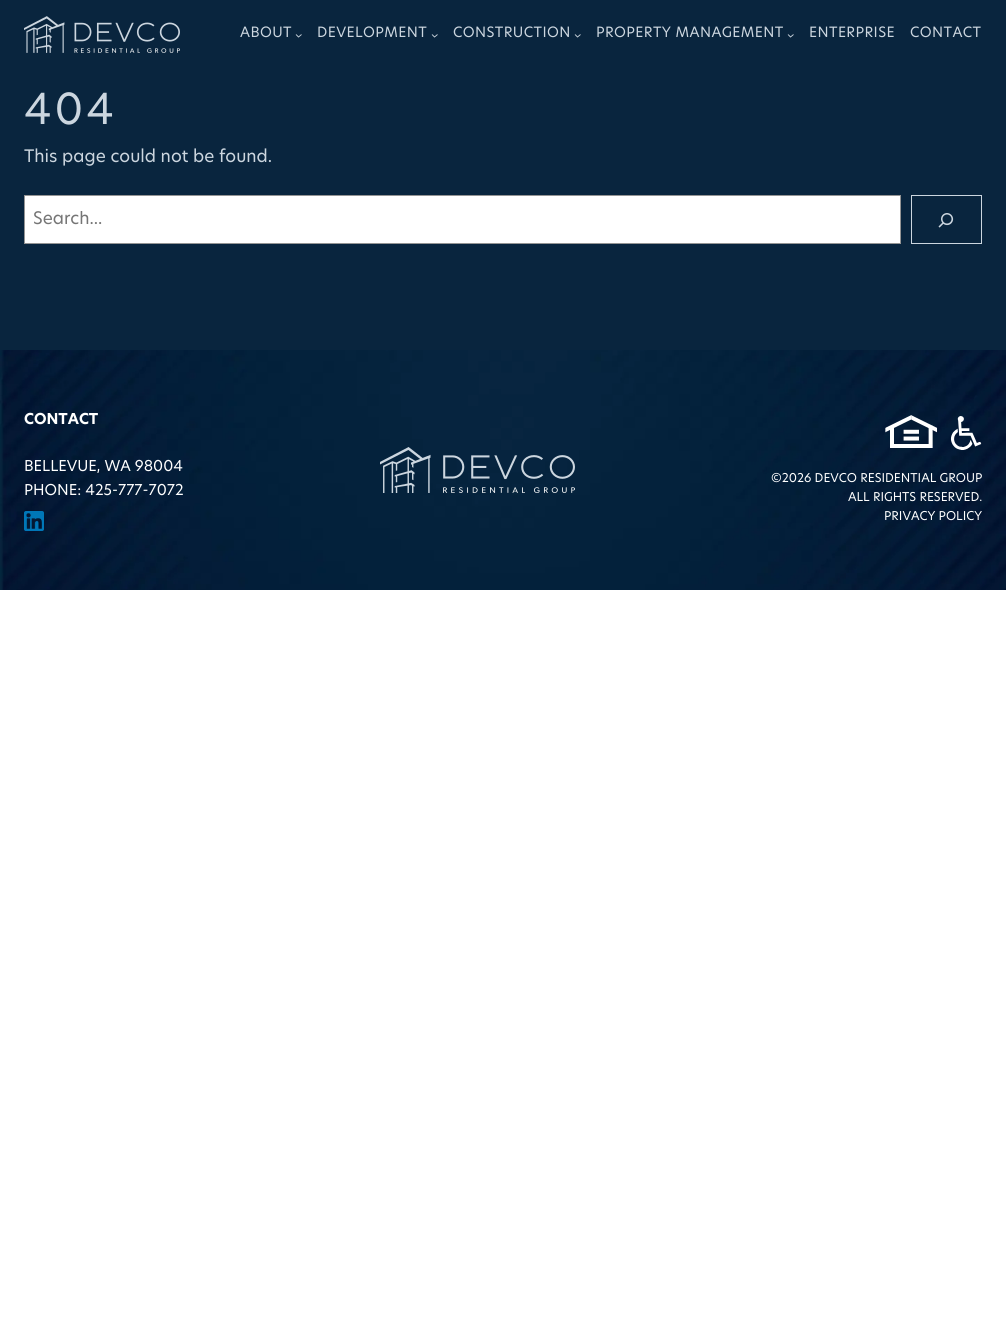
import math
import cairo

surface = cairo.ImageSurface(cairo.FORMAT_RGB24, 1006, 1321)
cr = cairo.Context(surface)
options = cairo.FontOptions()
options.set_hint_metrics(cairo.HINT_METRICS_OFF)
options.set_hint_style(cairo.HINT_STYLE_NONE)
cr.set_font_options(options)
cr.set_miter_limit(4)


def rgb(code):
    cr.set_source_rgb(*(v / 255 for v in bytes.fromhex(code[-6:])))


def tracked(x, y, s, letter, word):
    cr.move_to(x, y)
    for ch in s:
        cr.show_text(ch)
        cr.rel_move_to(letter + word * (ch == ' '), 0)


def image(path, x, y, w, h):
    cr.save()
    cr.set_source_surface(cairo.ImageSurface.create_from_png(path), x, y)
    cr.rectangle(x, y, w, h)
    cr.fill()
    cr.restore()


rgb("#ffffff")
cr.paint()
rgb("#09253e")
cr.rectangle(0, 0, 1006, 350)
cr.fill()
image("img/1.png", 24, 16, 156, 37)
cr.new_path()
cr.move_to(296, 34.5)
cr.line_to(298.5, 37)
cr.line_to(301.5, 34.5)
rgb("#ccd6df")
cr.set_line_width(0.9)
cr.stroke()
cr.new_path()
cr.move_to(432, 34.5)
cr.line_to(434.5, 37)
cr.line_to(437.5, 34.5)
cr.stroke()
cr.new_path()
cr.move_to(575, 34.5)
cr.line_to(577.5, 37)
cr.line_to(580.5, 34.5)
cr.stroke()
cr.new_path()
cr.move_to(788, 34.5)
cr.line_to(790.5, 37)
cr.line_to(793.5, 34.5)
cr.stroke()
rgb("#ffffff")
cr.rectangle(24.5, 195.5, 876, 48)
cr.fill_preserve()
rgb("#949494")
cr.set_line_width(1)
cr.stroke()
cr.rectangle(911.5, 195.5, 70, 48)
rgb("#ccd6df")
cr.stroke()
image("img/2.png", 938, 213, 16, 15)
image("img/3.png", 0, 350, 1006, 240)
image("img/4.png", 24, 511, 20, 20)
image("img/5.png", 380, 447, 195, 46)
image("img/6.png", 885, 415, 97, 35)
cr.select_font_face("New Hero")
cr.set_font_size(14)
for x, y, s in [
    (240, 37, "ABOUT"),
    (317, 37, "DEVELOPMENT"),
    (453, 37, "CONSTRUCTION"),
    (596, 37, "PROPERTY MANAGEMENT"),
    (809, 37, "ENTERPRISE"),
    (910, 37, "CONTACT"),
]:
    tracked(x, y, s, 0.4, 0)
cr.set_font_size(42)
tracked(24, 124, "404", 3, 0)
cr.set_font_size(17)
cr.move_to(24, 162)
cr.show_text("This page could not be found.")
cr.save()
cr.rectangle(33, 211, 843, 17)
cr.clip()
rgb("#757575")
cr.move_to(33, 224)
cr.show_text("Search...")
cr.restore()
cr.select_font_face("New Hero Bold", cairo.FONT_SLANT_NORMAL, cairo.FONT_WEIGHT_BOLD)
cr.set_font_size(14.75)
rgb("#ffffff")
cr.move_to(24, 424)
cr.show_text("CONTACT")
cr.select_font_face("New Hero")
cr.move_to(24, 471)
cr.show_text("BELLEVUE, WA 98004")
cr.move_to(24, 495)
cr.show_text("PHONE: 425-777-7072")
cr.set_font_size(12)
for x, y, s in [
    (771, 482, "©2026 DEVCO RESIDENTIAL GROUP"),
    (848, 501, "ALL RIGHTS RESERVED."),
    (884, 520, "PRIVACY POLICY"),
]:
    cr.move_to(x, y)
    cr.show_text(s)
surface.write_to_png("page.png")
